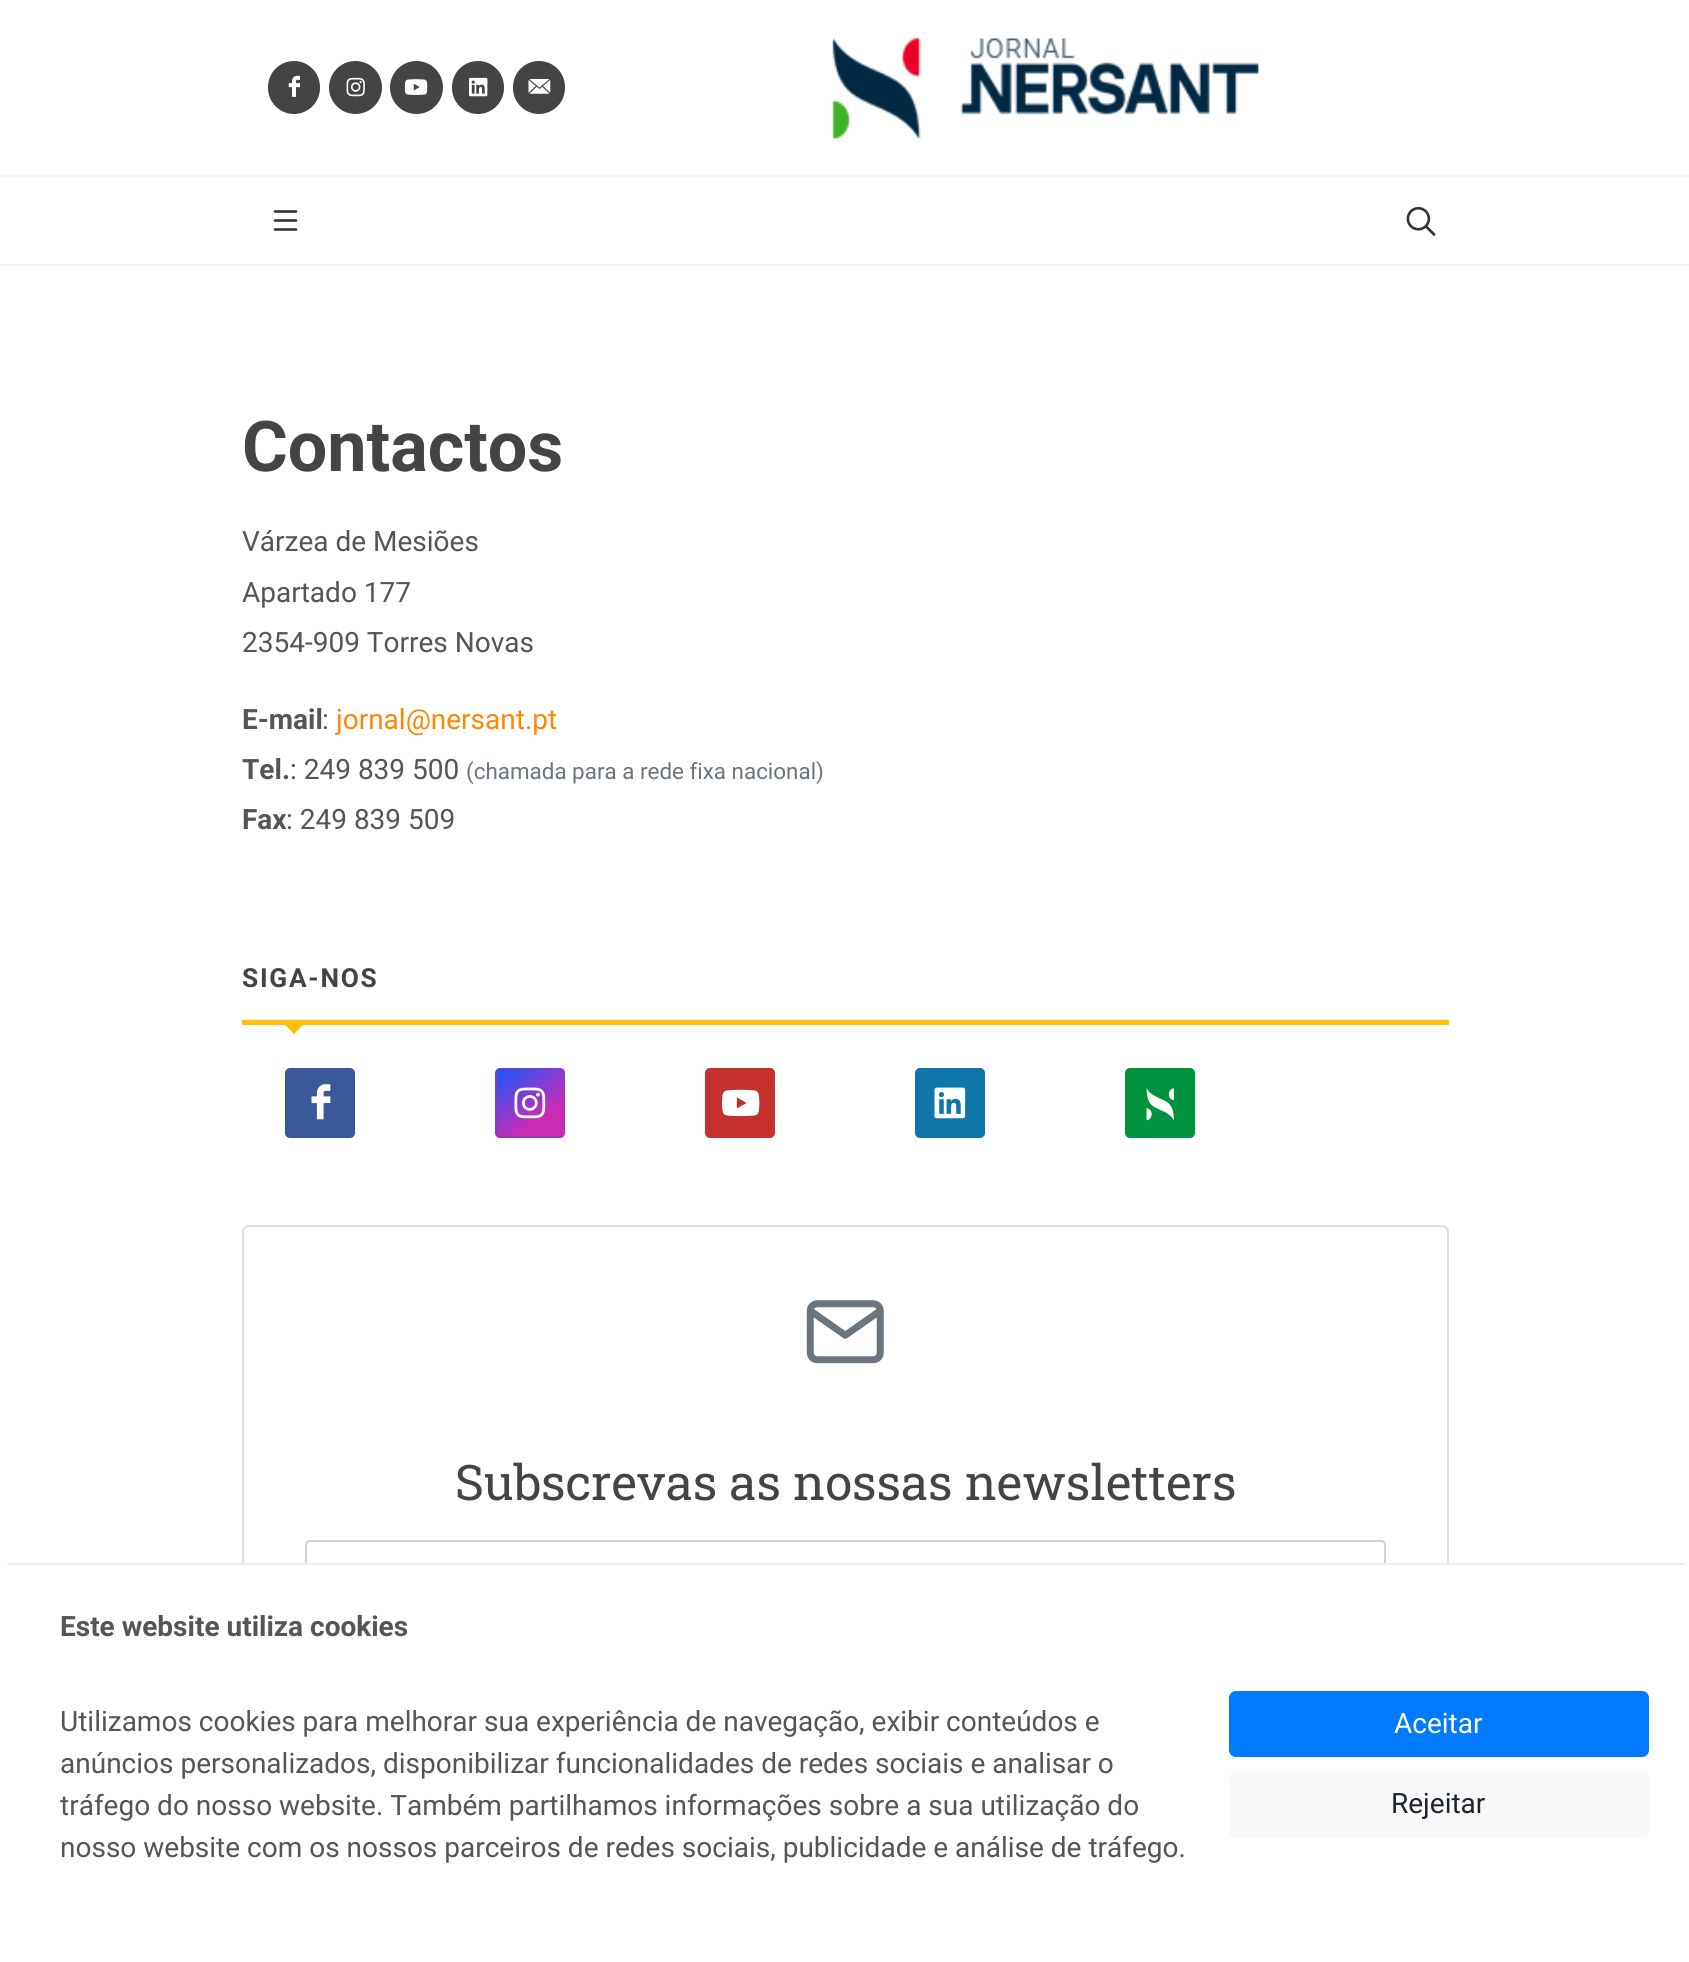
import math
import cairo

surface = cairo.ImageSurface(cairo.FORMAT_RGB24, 1689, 1962)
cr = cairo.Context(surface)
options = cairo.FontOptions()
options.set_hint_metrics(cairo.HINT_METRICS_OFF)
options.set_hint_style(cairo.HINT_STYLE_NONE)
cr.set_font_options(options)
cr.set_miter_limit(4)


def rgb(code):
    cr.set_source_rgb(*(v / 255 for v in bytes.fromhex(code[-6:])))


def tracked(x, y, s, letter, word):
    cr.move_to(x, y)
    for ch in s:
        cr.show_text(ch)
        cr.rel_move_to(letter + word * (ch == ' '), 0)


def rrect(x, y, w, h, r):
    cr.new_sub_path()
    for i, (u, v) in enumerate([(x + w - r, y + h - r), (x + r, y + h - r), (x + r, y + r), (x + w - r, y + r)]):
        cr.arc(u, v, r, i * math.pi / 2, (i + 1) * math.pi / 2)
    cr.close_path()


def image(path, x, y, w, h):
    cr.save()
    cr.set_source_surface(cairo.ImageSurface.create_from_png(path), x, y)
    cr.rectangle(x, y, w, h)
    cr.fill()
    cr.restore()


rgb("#ffffff")
cr.paint()
rgb("#f5f5f5")
cr.rectangle(0, 264, 1689, 2)
cr.fill()
rgb("#444444")
rrect(268, 61, 52, 53, 26)
cr.fill()
image("img/1.png", 288, 75, 13, 22)
cr.arc(355.5, 87.5, 26.5, 0, 2 * math.pi)
cr.fill()
image("img/2.png", 346, 77, 19, 20)
cr.arc(416.5, 87.5, 26.5, 0, 2 * math.pi)
cr.fill()
image("img/3.png", 404, 79, 24, 16)
rrect(452, 61, 52, 53, 26)
cr.fill()
image("img/4.png", 469, 77, 19, 20)
rrect(513, 61, 52, 53, 26)
cr.fill()
image("img/5.png", 528, 79, 23, 15)
image("img/6.png", 832, 38, 427, 101)
rgb("#f5f5f5")
cr.rectangle(0, 175, 1689, 2)
cr.fill()
cr.new_path()
cr.move_to(275, 211.5)
cr.line_to(296, 211.5)
cr.move_to(275, 220.5)
cr.line_to(296, 220.5)
cr.move_to(296, 229.5)
cr.line_to(275, 229.5)
rgb("#333333")
cr.set_line_width(2.6)
cr.set_line_cap(cairo.LINE_CAP_ROUND)
cr.stroke()
image("img/7.png", 1406, 206, 30, 30)
rgb("#eeeeee")
cr.rectangle(242, 1019, 1207, 1)
cr.fill()
rgb("#ffc107")
cr.rectangle(242, 1020, 1207, 5)
cr.fill()
cr.new_path()
cr.move_to(280, 1020)
cr.line_to(308, 1020)
cr.line_to(294, 1034)
cr.close_path()
cr.fill()
rgb("#3b5998")
rrect(285, 1068, 70, 70, 5)
cr.fill()
image("img/8.png", 311, 1084, 20, 36)
rgb("#8a3ab9")
rrect(495, 1068, 70, 70, 5)
cr.fill()
gradient = cairo.LinearGradient(504, 1065, 557, 1140)
gradient.add_color_stop_rgba(0.1, 0.188, 0.318, 0.945, 1)
gradient.add_color_stop_rgba(0.7, 0.788, 0.169, 0.718, 1)
cr.set_source(gradient)
cr.rectangle(497, 1069, 67, 67)
cr.fill()
image("img/9.png", 514, 1087, 32, 32)
rgb("#c4302b")
rrect(705, 1068, 70, 70, 5)
cr.fill()
image("img/10.png", 722, 1089, 38, 28)
rgb("#0e76a8")
rrect(915, 1068, 70, 70, 5)
cr.fill()
image("img/11.png", 934, 1087, 32, 32)
rgb("#00923f")
rrect(1125, 1068, 70, 70, 5)
cr.fill()
image("img/12.png", 1146, 1088, 28, 33)
rrect(243, 1226, 1205, 555, 6)
rgb("#dfdfdf")
cr.set_line_width(2)
cr.set_line_cap(cairo.LINE_CAP_BUTT)
cr.stroke()
image("img/13.png", 806, 1300, 78, 64)
rrect(306, 1541, 1079, 65, 4)
rgb("#ced4da")
cr.stroke()
rgb("#ffffff")
cr.new_path()
cr.move_to(12, 1563)
cr.line_to(1679, 1563)
cr.curve_to(1685.5, 1563, 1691, 1568.5, 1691, 1575)
cr.line_to(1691, 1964)
cr.line_to(0, 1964)
cr.line_to(0, 1575)
cr.curve_to(0, 1568.5, 5.5, 1563, 12, 1563)
cr.close_path()
cr.fill()
rgb("#eeeeee")
cr.rectangle(7, 1563, 1678, 2)
cr.fill()
rgb("#007bff")
rrect(1230, 1692, 418, 64, 6)
cr.fill_preserve()
cr.stroke()
rgb("#f8f9fa")
rrect(1229, 1771, 420, 67, 7)
cr.fill()
cr.select_font_face("Roboto", cairo.FONT_SLANT_NORMAL, cairo.FONT_WEIGHT_BOLD)
cr.set_font_size(70)
rgb("#444444")
cr.move_to(242, 471)
cr.show_text("Contactos")
cr.select_font_face("Roboto")
cr.set_font_size(28)
rgb("#555555")
for x, y, s in [
    (242, 551, "Várzea de Mesiões"),
    (242, 602, "Apartado 177"),
    (242, 652, "2354-909 Torres Novas"),
]:
    cr.move_to(x, y)
    cr.show_text(s)
cr.select_font_face("Roboto", cairo.FONT_SLANT_NORMAL, cairo.FONT_WEIGHT_BOLD)
cr.move_to(242, 729)
cr.show_text("E-mail")
cr.select_font_face("Roboto")
cr.move_to(322, 729)
cr.show_text(":")
rgb("#ff8600")
cr.move_to(336, 729)
cr.show_text("jornal@nersant.pt")
cr.select_font_face("Roboto", cairo.FONT_SLANT_NORMAL, cairo.FONT_WEIGHT_BOLD)
rgb("#555555")
cr.move_to(242, 779)
cr.show_text("Tel.")
cr.select_font_face("Roboto")
cr.move_to(290, 779)
cr.show_text(": 249 839 500")
cr.set_font_size(22.4)
rgb("#6c757d")
cr.move_to(466, 779)
cr.show_text("(chamada para a rede fixa nacional)")
cr.select_font_face("Roboto", cairo.FONT_SLANT_NORMAL, cairo.FONT_WEIGHT_BOLD)
cr.set_font_size(28)
rgb("#555555")
cr.move_to(242, 829)
cr.show_text("Fax")
cr.select_font_face("Roboto")
cr.move_to(286, 829)
cr.show_text(": 249 839 509")
cr.select_font_face("Roboto", cairo.FONT_SLANT_NORMAL, cairo.FONT_WEIGHT_BOLD)
cr.set_font_size(26.25)
rgb("#444444")
tracked(242, 987, "SIGA-NOS", 1.75, 0)
cr.select_font_face("Roboto Slab")
cr.set_font_size(49)
cr.move_to(455, 1500)
cr.show_text("Subscrevas as nossas newsletters")
cr.select_font_face("Roboto", cairo.FONT_SLANT_NORMAL, cairo.FONT_WEIGHT_BOLD)
cr.set_font_size(28)
rgb("#555555")
cr.move_to(60, 1636)
cr.show_text("Este website utiliza cookies")
cr.select_font_face("Roboto")
for x, y, s in [
    (60, 1731, "Utilizamos cookies para melhorar sua experiência de navegação, exibir conteúdos e"),
    (60, 1773, "anúncios personalizados, disponibilizar funcionalidades de redes sociais e analisar o"),
    (60, 1815, "tráfego do nosso website. Também partilhamos informações sobre a sua utilização do"),
    (60, 1857, "nosso website com os nossos parceiros de redes sociais, publicidade e análise de tráfego."),
]:
    cr.move_to(x, y)
    cr.show_text(s)
rgb("#ffffff")
cr.move_to(1394, 1733)
cr.show_text("Aceitar")
rgb("#212529")
cr.move_to(1391, 1813)
cr.show_text("Rejeitar")
surface.write_to_png("page.png")
